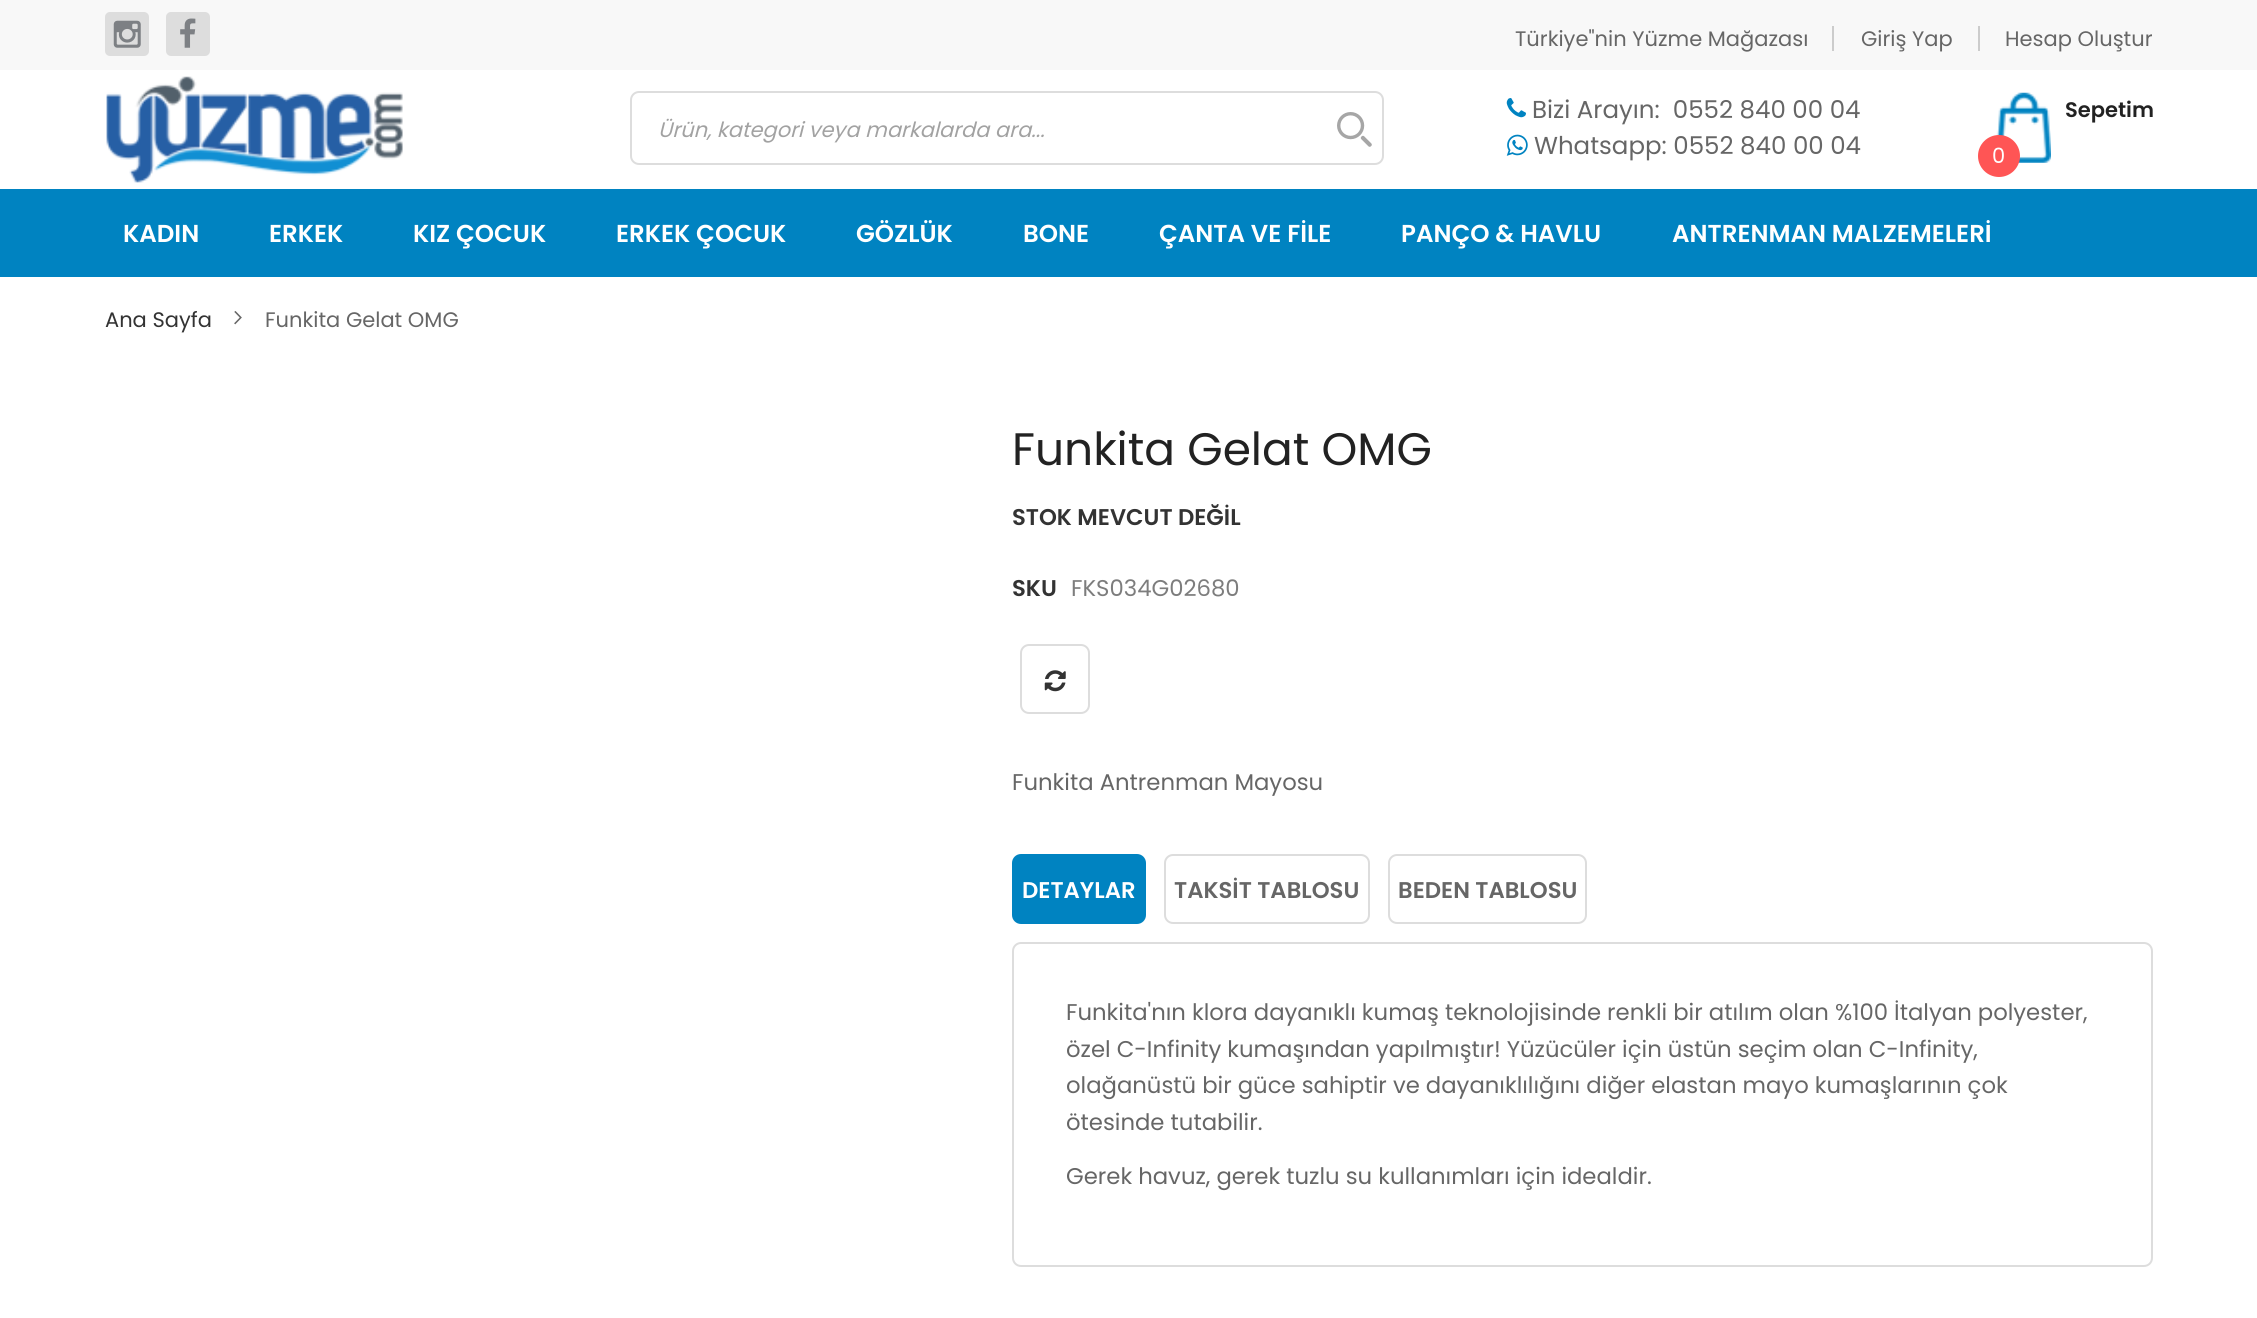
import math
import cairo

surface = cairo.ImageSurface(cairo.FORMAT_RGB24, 2257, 1318)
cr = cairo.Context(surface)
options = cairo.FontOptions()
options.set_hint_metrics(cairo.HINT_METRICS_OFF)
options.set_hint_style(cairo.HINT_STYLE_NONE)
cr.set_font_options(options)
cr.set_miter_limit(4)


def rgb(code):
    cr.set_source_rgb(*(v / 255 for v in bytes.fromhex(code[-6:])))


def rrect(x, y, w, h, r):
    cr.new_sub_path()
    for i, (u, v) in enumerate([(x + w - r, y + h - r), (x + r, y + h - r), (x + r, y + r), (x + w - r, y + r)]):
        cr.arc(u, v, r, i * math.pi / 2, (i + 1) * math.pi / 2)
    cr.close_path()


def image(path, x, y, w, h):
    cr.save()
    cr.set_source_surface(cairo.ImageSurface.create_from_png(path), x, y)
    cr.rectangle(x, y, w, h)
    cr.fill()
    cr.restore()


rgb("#ffffff")
cr.paint()
rgb("#f8f8f8")
cr.rectangle(0, 0, 2257, 70)
cr.fill()
rgb("#dddddd")
rrect(105, 12, 44, 44, 5)
cr.fill()
image("img/1.png", 113, 20, 28, 28)
rrect(166, 12, 44, 44, 5)
cr.fill()
image("img/2.png", 180, 18, 16, 30)
rgb("#cccccc")
cr.rectangle(1832, 26, 2, 25)
cr.fill()
cr.rectangle(1978, 26, 2, 25)
cr.fill()
image("img/3.png", 106, 76, 297, 107)
rrect(631, 92, 752, 72, 8)
rgb("#dddddd")
cr.stroke()
image("img/4.png", 1337, 112, 35, 35)
image("img/5.png", 1506, 98, 20, 20)
image("img/6.png", 1506, 134, 22, 22)
image("img/7.png", 1996, 92, 55, 71)
rgb("#ff5555")
cr.arc(1999, 156, 21, 0, 2 * math.pi)
cr.fill()
rgb("#0083c1")
cr.rectangle(0, 189, 2257, 88)
cr.fill()
image("img/8.png", 234, 311, 8, 14)
rrect(1021, 645, 68, 68, 8)
rgb("#dddddd")
cr.stroke()
image("img/9.png", 1044, 670, 22, 22)
rgb("#0083c1")
rrect(1013, 855, 132, 68, 8)
cr.fill_preserve()
cr.stroke()
rrect(1165, 855, 204, 68, 8)
rgb("#dddddd")
cr.stroke()
rrect(1389, 855, 197, 68, 8)
cr.stroke()
rrect(1013, 943, 1139, 323, 8)
cr.stroke()
cr.select_font_face("Poppins")
cr.set_font_size(21)
rgb("#666666")
for x, y, s in [
    (1515, 46, "Türkiye\"nin Yüzme Mağazası"),
    (1861, 46, "Giriş Yap"),
    (2005, 46, "Hesap Oluştur"),
]:
    cr.move_to(x, y)
    cr.show_text(s)
cr.select_font_face("Poppins", cairo.FONT_SLANT_ITALIC)
rgb("#a2a2a2")
cr.move_to(658, 137)
cr.show_text("Ürün, kategori veya markalarda ara...")
cr.select_font_face("Poppins")
cr.set_font_size(24.5)
rgb("#666666")
cr.move_to(1532, 118)
cr.show_text("Bizi Arayın:  0552 840 00 04")
cr.move_to(1534, 154)
cr.show_text("Whatsapp: 0552 840 00 04")
cr.select_font_face("Poppins SemiBold")
cr.set_font_size(21)
rgb("#222222")
cr.move_to(2065, 117)
cr.show_text("Sepetim")
cr.select_font_face("Poppins")
rgb("#ffffff")
cr.move_to(1992, 163)
cr.show_text("0")
cr.select_font_face("Poppins SemiBold")
cr.set_font_size(24.5)
for x, y, s in [
    (123, 242, "KADIN"),
    (269, 242, "ERKEK"),
    (413, 242, "KIZ ÇOCUK"),
    (616, 242, "ERKEK ÇOCUK"),
    (856, 242, "GÖZLÜK"),
    (1023, 242, "BONE"),
    (1159, 242, "ÇANTA VE FİLE"),
    (1401, 242, "PANÇO & HAVLU"),
    (1672, 242, "ANTRENMAN MALZEMELERİ"),
]:
    cr.move_to(x, y)
    cr.show_text(s)
cr.select_font_face("Poppins")
cr.set_font_size(21)
rgb("#333333")
cr.move_to(105, 327)
cr.show_text("Ana Sayfa")
rgb("#666666")
cr.move_to(265, 327)
cr.show_text("Funkita Gelat OMG")
cr.set_font_size(45.5)
rgb("#222222")
cr.move_to(1012, 465)
cr.show_text("Funkita Gelat OMG")
cr.select_font_face("Poppins SemiBold")
cr.set_font_size(22.75)
rgb("#333333")
cr.move_to(1012, 525)
cr.show_text("STOK MEVCUT DEĞİL")
cr.move_to(1012, 596)
cr.show_text("SKU")
cr.select_font_face("Poppins")
rgb("#7d7d7d")
cr.move_to(1071, 596)
cr.show_text("FKS034G02680")
rgb("#666666")
cr.move_to(1012, 790)
cr.show_text("Funkita Antrenman Mayosu")
cr.select_font_face("Poppins SemiBold")
rgb("#ffffff")
cr.move_to(1022, 898)
cr.show_text("DETAYLAR")
rgb("#666666")
cr.move_to(1174, 898)
cr.show_text("TAKSİT TABLOSU")
cr.move_to(1398, 898)
cr.show_text("BEDEN TABLOSU")
cr.select_font_face("Poppins")
for x, y, s in [
    (1066, 1020, "Funkita'nın klora dayanıklı kumaş teknolojisinde renkli bir atılım olan %100 İtalyan polyester,"),
    (1066, 1057, "özel C-Infinity kumaşından yapılmıştır! Yüzücüler için üstün seçim olan C-Infinity,"),
    (1066, 1093, "olağanüstü bir güce sahiptir ve dayanıklılığını diğer elastan mayo kumaşlarının çok"),
    (1066, 1130, "ötesinde tutabilir."),
    (1066, 1184, "Gerek havuz, gerek tuzlu su kullanımları için idealdir."),
]:
    cr.move_to(x, y)
    cr.show_text(s)
surface.write_to_png("page.png")
